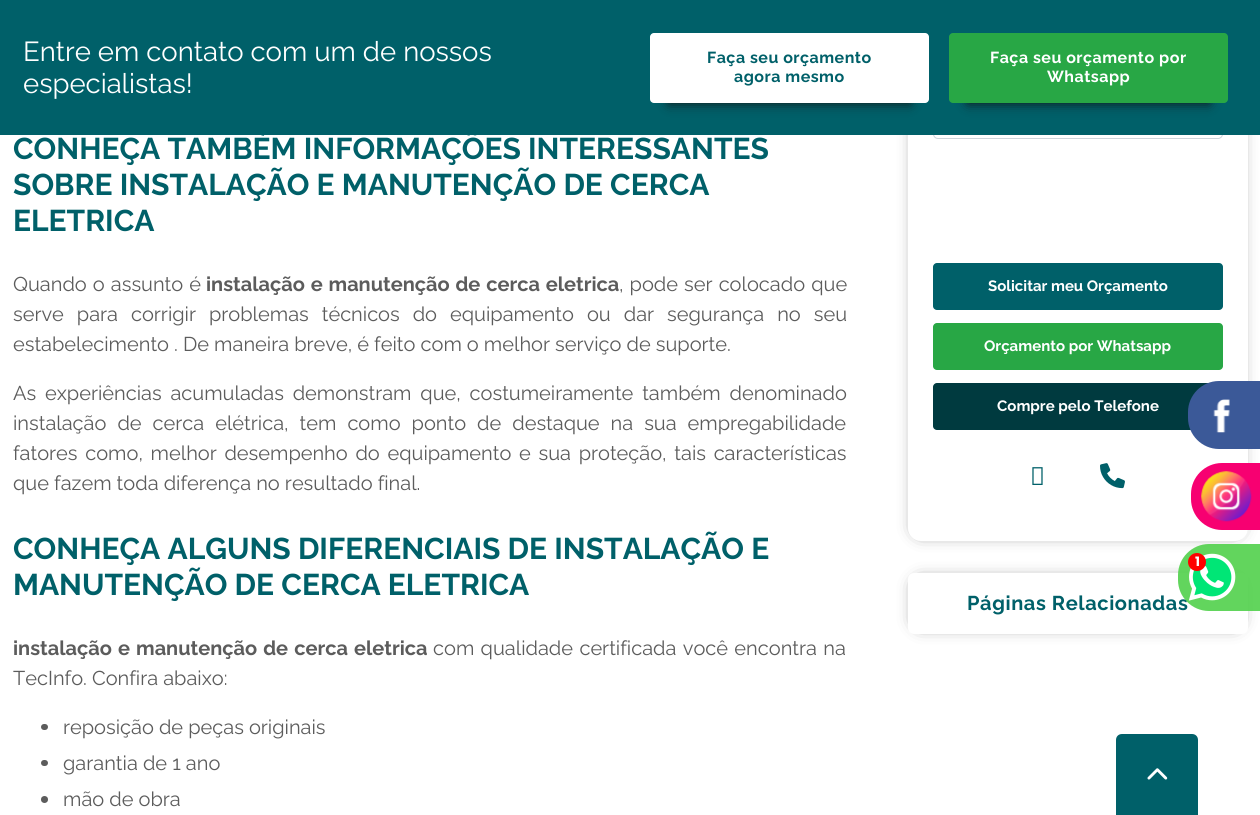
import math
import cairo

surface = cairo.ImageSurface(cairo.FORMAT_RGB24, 1260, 815)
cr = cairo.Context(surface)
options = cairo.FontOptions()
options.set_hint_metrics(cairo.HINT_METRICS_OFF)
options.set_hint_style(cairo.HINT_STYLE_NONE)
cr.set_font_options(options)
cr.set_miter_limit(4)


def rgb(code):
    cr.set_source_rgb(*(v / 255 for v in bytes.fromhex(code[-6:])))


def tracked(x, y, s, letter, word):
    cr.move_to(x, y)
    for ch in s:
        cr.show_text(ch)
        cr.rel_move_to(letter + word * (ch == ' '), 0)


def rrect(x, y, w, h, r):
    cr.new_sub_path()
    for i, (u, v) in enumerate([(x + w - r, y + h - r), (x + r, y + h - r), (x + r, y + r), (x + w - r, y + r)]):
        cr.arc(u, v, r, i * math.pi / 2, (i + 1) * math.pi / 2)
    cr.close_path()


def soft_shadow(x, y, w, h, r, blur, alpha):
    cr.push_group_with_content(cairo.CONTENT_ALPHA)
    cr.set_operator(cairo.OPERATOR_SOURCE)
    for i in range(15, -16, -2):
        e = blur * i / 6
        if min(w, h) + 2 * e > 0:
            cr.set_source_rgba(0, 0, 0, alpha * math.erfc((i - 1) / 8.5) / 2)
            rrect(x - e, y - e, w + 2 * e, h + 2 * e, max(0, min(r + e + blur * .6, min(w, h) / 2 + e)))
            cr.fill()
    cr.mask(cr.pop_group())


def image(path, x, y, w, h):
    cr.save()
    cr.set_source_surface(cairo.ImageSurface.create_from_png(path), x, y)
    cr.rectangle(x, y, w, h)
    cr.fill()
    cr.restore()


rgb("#ffffff")
cr.paint()
rgb("#000000")
soft_shadow(920, -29, 315, 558, 0, 9.5, 1)
rgb("#ffffff")
rrect(908, -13, 340, 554, 13)
cr.fill()
rrect(933.5, 14.5, 289, 124, 4.5)
rgb("#ced4da")
cr.set_line_width(1)
cr.stroke()
rgb("#006069")
cr.rectangle(0, 0, 1260, 135)
cr.fill()
rgb("#111111")
soft_shadow(669, 70, 241, 33, 0, 6, 1)
rgb("#ffffff")
rrect(650, 33, 279, 70, 4)
cr.fill()
rgb("#111111")
soft_shadow(968, 70, 241, 33, 0, 6, 1)
rgb("#28a745")
rrect(949, 33, 279, 70, 4)
cr.fill()
rgb("#5c5c5c")
rrect(41, 724, 7, 6, 3)
cr.fill()
rrect(41, 760, 7, 6, 3)
cr.fill()
cr.arc(44.5, 799.5, 3.5, 0, 2 * math.pi)
cr.fill()
rgb("#006069")
rrect(933, 263, 290, 47, 4)
cr.fill()
rgb("#28a745")
rrect(933, 323, 290, 47, 4)
cr.fill()
rgb("#003a3f")
rrect(933, 383, 290, 47, 4)
cr.fill()
image("img/1.png", 1032, 467, 11, 18)
image("img/2.png", 1100, 463, 25, 26)
rgb("#000000")
soft_shadow(920, 585, 315, 36, 0, 9.5, 1)
rgb("#ffffff")
rrect(908, 573, 340, 61, 6)
cr.fill()
rgb("#3b5998")
cr.new_path()
cr.move_to(1219, 381)
cr.line_to(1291, 381)
cr.line_to(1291, 449)
cr.line_to(1219, 449)
cr.curve_to(1202, 449, 1188, 435, 1188, 418)
cr.line_to(1188, 412)
cr.curve_to(1188, 395, 1202, 381, 1219, 381)
cr.close_path()
cr.fill()
image("img/3.png", 1213, 399, 17, 34)
rgb("#f70071")
cr.new_path()
cr.move_to(1222, 463)
cr.line_to(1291, 463)
cr.line_to(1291, 530)
cr.line_to(1222, 530)
cr.curve_to(1205, 530, 1191, 516, 1191, 499)
cr.line_to(1191, 494)
cr.curve_to(1191, 477, 1205, 463, 1222, 463)
cr.close_path()
cr.fill()
image("img/4.png", 1201, 471, 51, 51)
rgb("#006069")
cr.new_path()
cr.move_to(1122, 734)
cr.line_to(1192, 734)
cr.curve_to(1195.5, 734, 1198, 736.5, 1198, 740)
cr.line_to(1198, 815)
cr.line_to(1116, 815)
cr.line_to(1116, 740)
cr.curve_to(1116, 736.5, 1118.5, 734, 1122, 734)
cr.close_path()
cr.fill()
image("img/6.png", 1147, 768, 21, 12)
cr.select_font_face("Raleway")
cr.set_font_size(27.5)
rgb("#ffffff")
cr.move_to(23, 61)
cr.show_text("Entre em contato com um de nossos")
cr.move_to(23, 93)
cr.show_text("especialistas!")
cr.select_font_face("Raleway", cairo.FONT_SLANT_NORMAL, cairo.FONT_WEIGHT_BOLD)
cr.set_font_size(16)
rgb("#006069")
tracked(707, 63, "Faça seu orçamento", 0.5, 0)
tracked(734, 82, "agora mesmo", 0.5, 0)
rgb("#ffffff")
tracked(990, 63, "Faça seu orçamento por", 0.5, 0)
tracked(1047, 82, "Whatsapp", 0.5, 0)
cr.set_font_size(30)
rgb("#006069")
for x, y, s in [
    (13, 159, "CONHEÇA TAMBÉM INFORMAÇÕES INTERESSANTES"),
    (13, 195, "SOBRE INSTALAÇÃO E MANUTENÇÃO DE CERCA"),
    (13, 231, "ELETRICA"),
]:
    cr.move_to(x, y)
    cr.show_text(s)
cr.select_font_face("Raleway")
cr.set_font_size(20)
rgb("#5c5c5c")
tracked(13, 291, "Quando o assunto é", 0, 1)
cr.select_font_face("Raleway", cairo.FONT_SLANT_NORMAL, cairo.FONT_WEIGHT_BOLD)
tracked(206, 291, "instalação e manutenção de cerca eletrica", 0, 1)
cr.select_font_face("Raleway")
tracked(619, 291, ", pode ser colocado que", 0, 1)
tracked(13, 321, "serve para corrigir problemas técnicos do equipamento ou dar segurança no seu", 0, 7.9)
cr.move_to(13, 351)
cr.show_text("estabelecimento . De maneira breve, é feito com o melhor serviço de suporte.")
tracked(13, 400, "As experiências acumuladas demonstram que, costumeiramente também denominado", 0, 3.75)
tracked(13, 430, "instalação de cerca elétrica, tem como ponto de destaque na sua empregabilidade", 0, 5.9)
tracked(13, 460, "fatores como, melhor desempenho do equipamento e sua proteção, tais características", 0, 2.6)
cr.move_to(13, 490)
cr.show_text("que fazem toda diferença no resultado final.")
cr.select_font_face("Raleway", cairo.FONT_SLANT_NORMAL, cairo.FONT_WEIGHT_BOLD)
cr.set_font_size(30)
rgb("#006069")
cr.move_to(13, 559)
cr.show_text("CONHEÇA ALGUNS DIFERENCIAIS DE INSTALAÇÃO E")
cr.move_to(13, 595)
cr.show_text("MANUTENÇÃO DE CERCA ELETRICA")
cr.set_font_size(20)
rgb("#5c5c5c")
tracked(13, 655, "instalação e manutenção de cerca eletrica", 0, 1.25)
cr.select_font_face("Raleway")
tracked(433, 655, "com qualidade certificada você encontra na", 0, 1.25)
for x, y, s in [
    (13, 685, "TecInfo. Confira abaixo:"),
    (63, 734, "reposição de peças originais"),
    (63, 770, "garantia de 1 ano"),
    (63, 806, "mão de obra"),
]:
    cr.move_to(x, y)
    cr.show_text(s)
cr.select_font_face("Raleway", cairo.FONT_SLANT_NORMAL, cairo.FONT_WEIGHT_BOLD)
cr.set_font_size(15)
rgb("#ffffff")
for x, y, s in [
    (988, 291, "Solicitar meu Orçamento"),
    (984, 351, "Orçamento por Whatsapp"),
    (997, 411, "Compre pelo Telefone"),
]:
    cr.move_to(x, y)
    cr.show_text(s)
cr.set_font_size(20)
rgb("#006069")
tracked(967, 610, "Páginas Relacionadas", 0.6, 0)
cr.set_source_rgba(0.322, 0.816, 0.302, 0.91)
cr.new_path()
cr.move_to(1209, 544)
cr.line_to(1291, 544)
cr.line_to(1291, 611)
cr.line_to(1209, 611)
cr.curve_to(1192, 611, 1178, 597, 1178, 580)
cr.line_to(1178, 575)
cr.curve_to(1178, 558, 1192, 544, 1209, 544)
cr.close_path()
cr.fill()
image("img/5.png", 1188, 553, 48, 48)
rgb("#ff0000")
cr.arc(1197, 562, 9, 0, 2 * math.pi)
cr.fill()
cr.select_font_face("Poppins", cairo.FONT_SLANT_NORMAL, cairo.FONT_WEIGHT_BOLD)
cr.set_font_size(13)
rgb("#ffffff")
cr.move_to(1195, 566)
cr.show_text("1")
surface.write_to_png("page.png")
